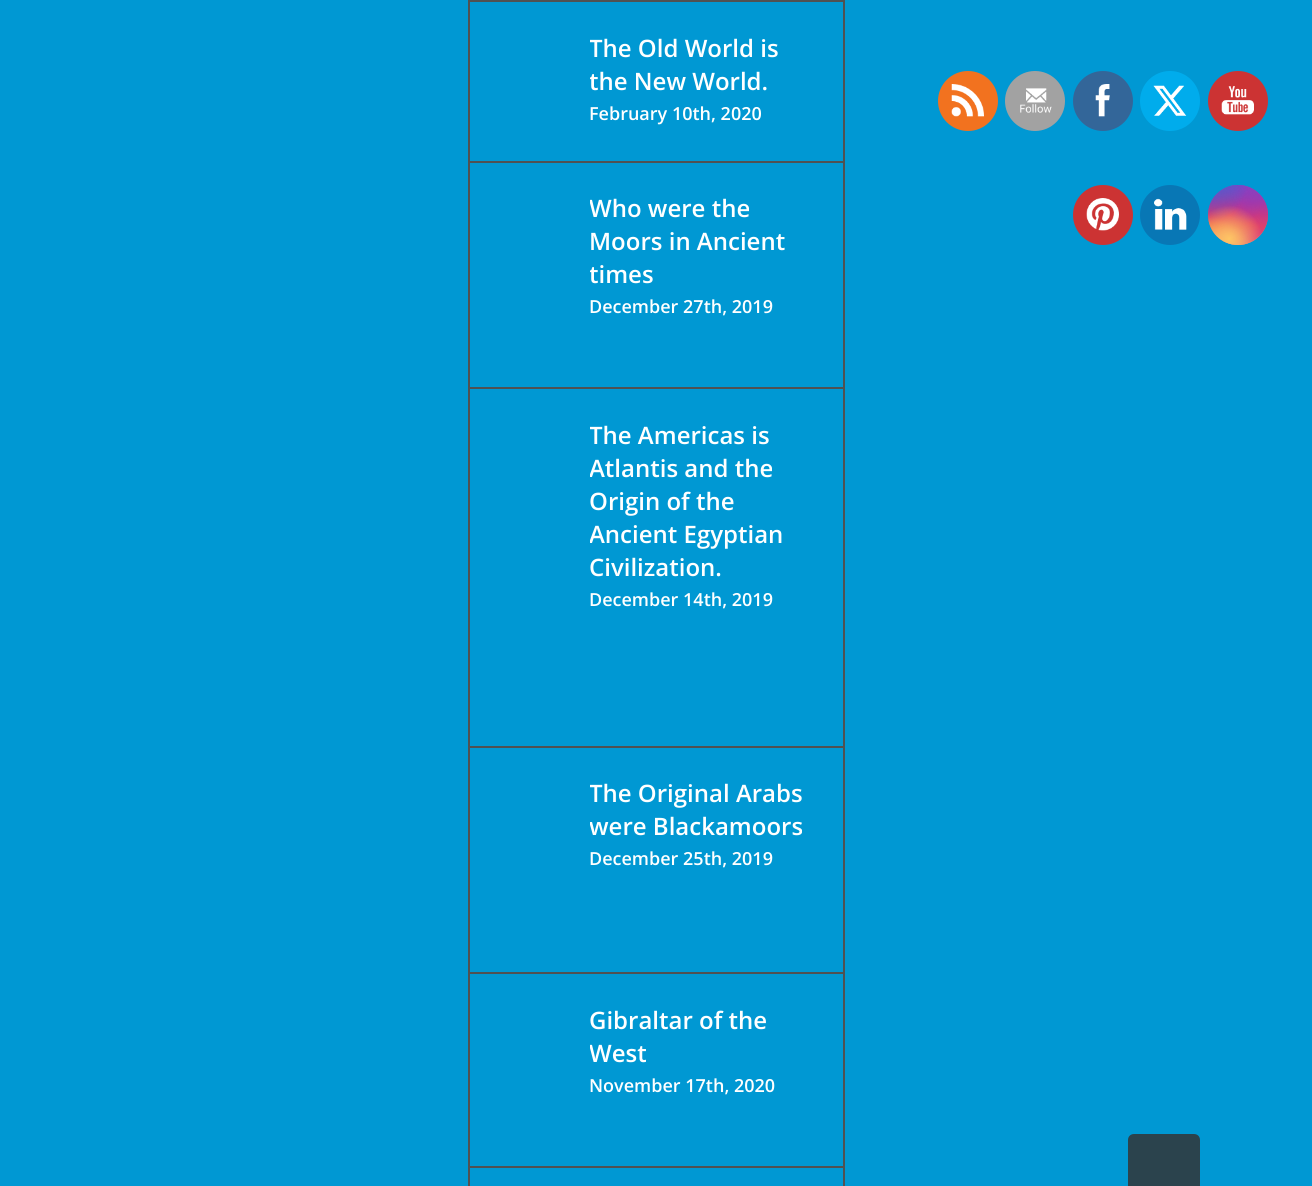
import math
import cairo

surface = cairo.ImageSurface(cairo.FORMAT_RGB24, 1312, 1186)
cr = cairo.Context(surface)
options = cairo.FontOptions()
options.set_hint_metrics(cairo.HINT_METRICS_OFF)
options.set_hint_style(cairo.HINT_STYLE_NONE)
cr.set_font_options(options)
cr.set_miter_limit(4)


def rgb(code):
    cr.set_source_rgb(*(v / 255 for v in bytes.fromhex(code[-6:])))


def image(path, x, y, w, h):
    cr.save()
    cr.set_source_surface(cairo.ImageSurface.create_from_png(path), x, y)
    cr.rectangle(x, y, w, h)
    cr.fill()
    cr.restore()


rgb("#0098d3")
cr.paint()
cr.rectangle(469, -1, 375, 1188)
rgb("#505152")
cr.stroke()
for x, y, w, h, color in [
    (470, 0, 373, 2, "#505152"),
    (470, 161, 373, 2, "#505152"),
    (470, 387, 373, 2, "#505152"),
    (470, 746, 373, 2, "#505152"),
    (470, 972, 373, 2, "#505152"),
    (470, 1166, 373, 2, "#505152"),
]:
    rgb(color)
    cr.rectangle(x, y, w, h)
    cr.fill()
rgb("#f2721f")
cr.arc(968, 101, 30, 0, 2 * math.pi)
cr.fill()
image("img/1.png", 951, 84, 33, 33)
rgb("#a2a2a2")
cr.arc(1035, 101, 30, 0, 2 * math.pi)
cr.fill()
image("img/2.png", 1020, 88, 32, 25)
rgb("#336699")
cr.arc(1103, 101, 30, 0, 2 * math.pi)
cr.fill()
image("img/3.png", 1095, 84, 15, 33)
rgb("#00acec")
cr.arc(1170, 101, 30, 0, 2 * math.pi)
cr.fill()
image("img/4.png", 1153, 85, 34, 31)
rgb("#cc3333")
cr.arc(1238, 101, 30, 0, 2 * math.pi)
cr.fill()
image("img/5.png", 1221, 86, 33, 29)
cr.arc(1103, 215, 30, 0, 2 * math.pi)
cr.fill()
image("img/6.png", 1086, 198, 33, 33)
rgb("#0877b5")
cr.arc(1170, 215, 30, 0, 2 * math.pi)
cr.fill()
image("img/7.png", 1154, 198, 33, 32)
gradient = cairo.LinearGradient(1238, 185, 1238, 245)
gradient.add_color_stop_rgba(0, 0.396, 0.349, 0.792, 1)
gradient.add_color_stop_rgba(0.3, 0.737, 0.192, 0.561, 1)
gradient.add_color_stop_rgba(0.5, 0.89, 0.247, 0.373, 1)
gradient.add_color_stop_rgba(0.7, 0.969, 0.463, 0.22, 1)
gradient.add_color_stop_rgba(1, 0.996, 0.776, 0.427, 1)
cr.set_source(gradient)
cr.arc(1238, 215, 30, 0, 2 * math.pi)
cr.fill()
gradient = cairo.RadialGradient(1268, 245, 0, 1268, 245, 85)
gradient.add_color_stop_rgba(0, 0.851, 0.192, 0.478, 1)
gradient.add_color_stop_rgba(1, 0.851, 0.192, 0.478, 0)
cr.set_source(gradient)
cr.arc(1238, 215, 30, 0, 2 * math.pi)
cr.fill()
gradient = cairo.RadialGradient(0, 0, 0, 0, 0, 1)
gradient.set_matrix(cairo.Matrix(1 / 51, 0, 0, 1 / 102, -1 * 1244 / 51, -1 * 173 / 102))
gradient.add_color_stop_rgba(0, 0.537, 0.239, 0.761, 1)
gradient.add_color_stop_rgba(0.5, 0.537, 0.239, 0.761, 0)
cr.set_source(gradient)
cr.arc(1238, 215, 30, 0, 2 * math.pi)
cr.fill()
gradient = cairo.RadialGradient(1268, 185, 0, 1268, 185, 85)
gradient.add_color_stop_rgba(0, 0.537, 0.239, 0.761, 1)
gradient.add_color_stop_rgba(0.5, 0.537, 0.239, 0.761, 0)
cr.set_source(gradient)
cr.arc(1238, 215, 30, 0, 2 * math.pi)
cr.fill()
gradient = cairo.RadialGradient(0, 0, 0, 0, 0, 1)
gradient.set_matrix(cairo.Matrix(1 / 68, 0, 0, 1 / 127, -1 * 1220 / 68, -1 * 155 / 127))
gradient.add_color_stop_rgba(0, 0.322, 0.345, 0.812, 1)
gradient.add_color_stop_rgba(0.5, 0.322, 0.345, 0.812, 0)
cr.set_source(gradient)
cr.arc(1238, 215, 30, 0, 2 * math.pi)
cr.fill()
gradient = cairo.RadialGradient(0, 0, 0, 0, 0, 1)
gradient.set_matrix(cairo.Matrix(1 / 85, 0, 0, 1 / 106, -1 * 1208 / 85, -1 * 170 / 106))
gradient.add_color_stop_rgba(0, 0.322, 0.345, 0.812, 1)
gradient.add_color_stop_rgba(0.5, 0.322, 0.345, 0.812, 0)
cr.set_source(gradient)
cr.arc(1238, 215, 30, 0, 2 * math.pi)
cr.fill()
gradient = cairo.RadialGradient(1208, 269, 0, 1208, 269, 103)
gradient.add_color_stop_rgba(0, 0.996, 0.773, 0.392, 1)
gradient.add_color_stop_rgba(0.5, 0.996, 0.773, 0.392, 0)
cr.set_source(gradient)
cr.arc(1238, 215, 30, 0, 2 * math.pi)
cr.fill()
gradient = cairo.RadialGradient(1229, 239, 0, 1229, 239, 67)
gradient.add_color_stop_rgba(0, 0.996, 0.773, 0.392, 1)
gradient.add_color_stop_rgba(0.5, 0.996, 0.773, 0.392, 0)
cr.set_source(gradient)
cr.arc(1238, 215, 30, 0, 2 * math.pi)
cr.fill()
rgb("#2b434d")
cr.new_path()
cr.move_to(1134, 1134)
cr.line_to(1194, 1134)
cr.curve_to(1197.5, 1134, 1200, 1136.5, 1200, 1140)
cr.line_to(1200, 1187)
cr.line_to(1128, 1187)
cr.line_to(1128, 1140)
cr.curve_to(1128, 1136.5, 1130.5, 1134, 1134, 1134)
cr.close_path()
cr.fill()
cr.save()
cr.rectangle(590, 32, 231, 66)
cr.clip()
cr.select_font_face("Open Sans SemiBold")
cr.set_font_size(24)
rgb("#ffffff")
cr.move_to(589, 57)
cr.show_text("The Old World is")
cr.move_to(589, 90)
cr.show_text("the New World.")
cr.restore()
cr.select_font_face("Open Sans SemiBold")
cr.set_font_size(18)
rgb("#ffffff")
cr.move_to(589, 120)
cr.show_text("February 10th, 2020")
cr.save()
cr.rectangle(590, 192, 231, 99)
cr.clip()
cr.set_font_size(24)
cr.move_to(589, 217)
cr.show_text("Who were the")
cr.restore()
cr.set_font_size(24)
cr.move_to(589, 250)
cr.show_text("Moors in Ancient")
cr.save()
cr.rectangle(590, 192, 231, 99)
cr.clip()
cr.move_to(589, 283)
cr.show_text("times")
cr.restore()
cr.set_font_size(18)
cr.move_to(589, 313)
cr.show_text("December 27th, 2019")
cr.save()
cr.rectangle(590, 419, 231, 165)
cr.clip()
cr.set_font_size(24)
cr.move_to(589, 444)
cr.show_text("The Americas is")
cr.move_to(589, 477)
cr.show_text("Atlantis and the")
cr.restore()
cr.set_font_size(24)
cr.move_to(589, 510)
cr.show_text("Origin of the")
cr.save()
cr.rectangle(590, 419, 231, 165)
cr.clip()
cr.move_to(589, 543)
cr.show_text("Ancient Egyptian")
cr.restore()
cr.move_to(589, 576)
cr.show_text("Civilization.")
cr.set_font_size(18)
cr.move_to(589, 606)
cr.show_text("December 14th, 2019")
cr.save()
cr.rectangle(590, 777, 231, 66)
cr.clip()
cr.set_font_size(24)
cr.move_to(589, 802)
cr.show_text("The Original Arabs")
cr.move_to(589, 835)
cr.show_text("were Blackamoors")
cr.restore()
cr.move_to(589, 865)
cr.show_text("December 25th, 2019")
cr.set_font_size(24)
cr.move_to(589, 1029)
cr.show_text("Gibraltar of the")
cr.save()
cr.rectangle(590, 1004, 231, 66)
cr.clip()
cr.move_to(589, 1062)
cr.show_text("West")
cr.restore()
cr.set_font_size(18)
cr.move_to(589, 1092)
cr.show_text("November 17th, 2020")
surface.write_to_png("page.png")
